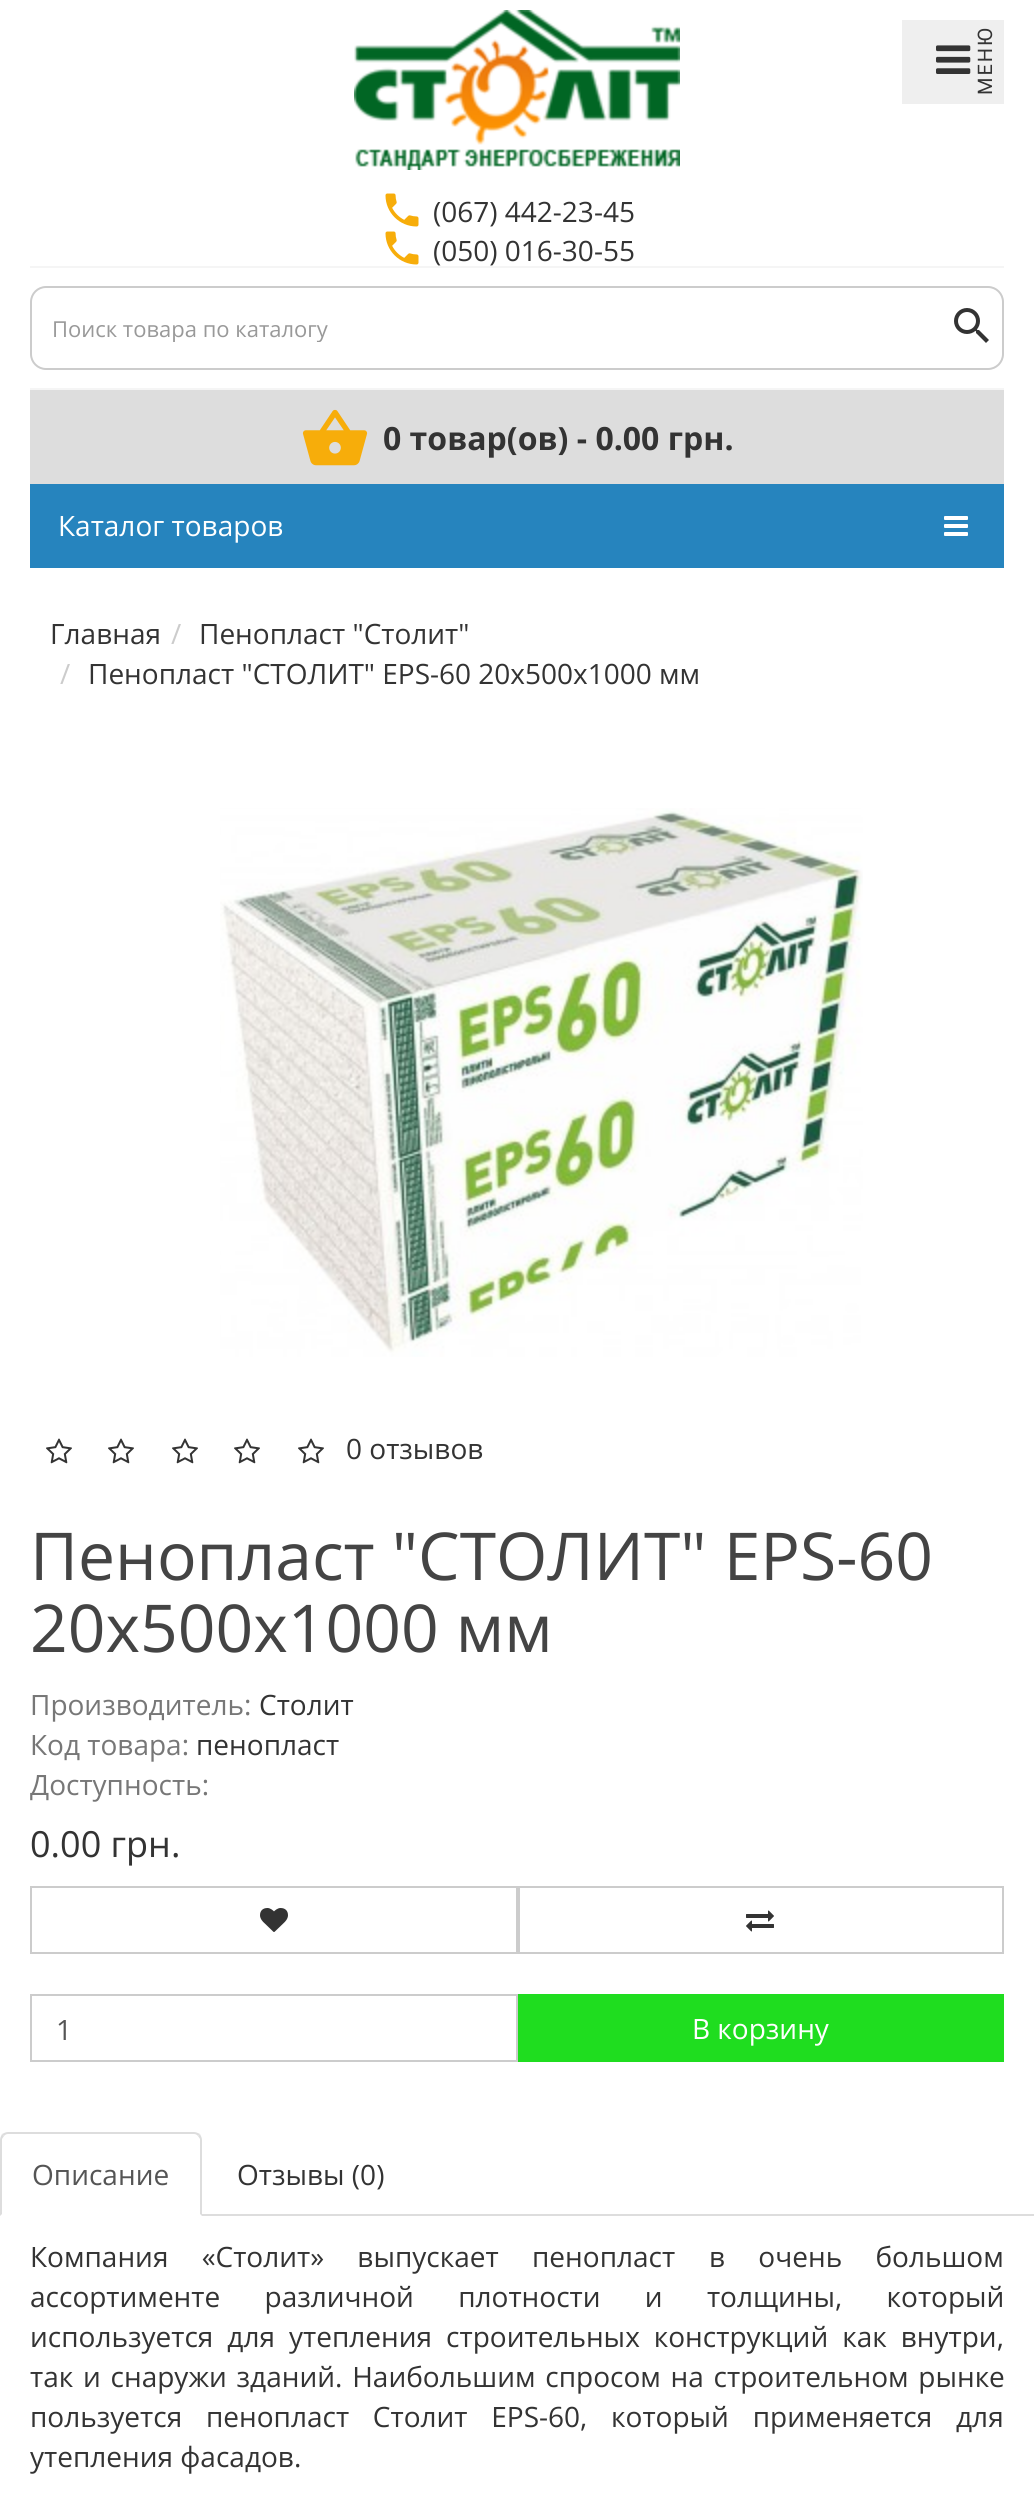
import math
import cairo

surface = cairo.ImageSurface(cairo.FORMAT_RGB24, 1034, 2504)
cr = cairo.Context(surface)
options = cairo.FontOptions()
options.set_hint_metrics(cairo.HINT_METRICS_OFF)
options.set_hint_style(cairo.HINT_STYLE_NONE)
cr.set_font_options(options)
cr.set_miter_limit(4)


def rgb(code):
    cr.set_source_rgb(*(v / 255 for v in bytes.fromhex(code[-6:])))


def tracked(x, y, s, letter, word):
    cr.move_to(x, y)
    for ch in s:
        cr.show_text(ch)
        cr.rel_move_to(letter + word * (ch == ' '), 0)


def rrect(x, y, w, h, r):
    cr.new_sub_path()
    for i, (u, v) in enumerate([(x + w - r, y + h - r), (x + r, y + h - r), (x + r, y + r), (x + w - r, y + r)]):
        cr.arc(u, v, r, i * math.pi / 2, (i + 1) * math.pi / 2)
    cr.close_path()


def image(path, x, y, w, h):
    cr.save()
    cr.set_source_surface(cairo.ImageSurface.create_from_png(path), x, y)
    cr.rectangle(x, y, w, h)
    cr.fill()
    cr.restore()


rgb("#ffffff")
cr.paint()
image("img/1.png", 354, 10, 326, 160)
rgb("#efefef")
cr.rectangle(902, 20, 102, 84)
cr.fill()
image("img/2.png", 936, 45, 35, 29)
image("img/3.png", 385, 193, 34, 34)
image("img/3.png", 385, 231, 34, 34)
rgb("#f5f5f5")
cr.rectangle(30, 266, 974, 2)
cr.fill()
cr.rectangle(30, 388, 974, 2)
cr.fill()
rrect(31, 287, 972, 82, 15)
rgb("#cccccc")
cr.stroke()
image("img/4.png", 954, 308, 35, 35)
rgb("#dddddd")
cr.rectangle(30, 390, 974, 94)
cr.fill()
image("img/5.png", 302, 409, 66, 57)
rgb("#2684be")
cr.rectangle(30, 484, 974, 84)
cr.fill()
image("img/6.png", 944, 516, 24, 20)
image("img/7.png", 220, 808, 643, 549)
image("img/8.png", 46, 1438, 26, 26)
image("img/8.png", 108, 1438, 26, 26)
image("img/8.png", 172, 1438, 26, 26)
image("img/8.png", 234, 1438, 26, 26)
image("img/8.png", 298, 1438, 26, 26)
cr.rectangle(31, 1887, 486, 66)
rgb("#cccccc")
cr.stroke()
image("img/9.png", 260, 1908, 28, 24)
cr.rectangle(519, 1887, 484, 66)
cr.stroke()
image("img/10.png", 746, 1910, 28, 22)
cr.rectangle(31, 1995, 486, 66)
cr.stroke()
rgb("#1fdd1f")
cr.rectangle(518, 1994, 486, 68)
cr.fill()
rgb("#dddddd")
cr.rectangle(202, 2214, 832, 2)
cr.fill()
cr.new_path()
cr.move_to(8, 2132)
cr.curve_to(6, 2132, 4, 2133, 2, 2134)
cr.line_to(4, 2136)
cr.curve_to(5, 2135, 6, 2134, 8, 2134)
cr.line_to(194, 2134)
cr.curve_to(196, 2134, 197, 2135, 198, 2136)
cr.line_to(200, 2134)
cr.curve_to(198, 2133, 196, 2132, 194, 2132)
cr.close_path()
cr.fill()
cr.new_path()
cr.move_to(202, 2216)
cr.line_to(202, 2140)
cr.curve_to(202, 2138, 201, 2136, 200, 2134)
cr.line_to(198, 2136)
cr.line_to(200, 2139)
cr.line_to(200, 2214)
cr.close_path()
cr.fill()
cr.new_path()
cr.move_to(0, 2216)
cr.line_to(2, 2214)
cr.line_to(2, 2139)
cr.line_to(4, 2136)
cr.line_to(2, 2134)
cr.curve_to(1, 2136, 0, 2138, 0, 2140)
cr.close_path()
cr.fill()
cr.select_font_face("Roboto")
cr.set_font_size(20)
rgb("#333333")
cr.save()
cr.translate(992, 95)
cr.rotate(-90 * math.pi / 180)
tracked(0, 0, "МЕНЮ", 2, 0)
cr.restore()
cr.select_font_face("Open Sans")
cr.set_font_size(28)
cr.move_to(433, 222)
cr.show_text("(067) 442-23-45")
cr.move_to(433, 261)
cr.show_text("(050) 016-30-55")
cr.save()
cr.rectangle(52, 312, 930, 30)
cr.clip()
cr.set_font_size(22)
rgb("#999999")
cr.move_to(52, 337)
cr.show_text("Поиск товара по каталогу")
cr.restore()
cr.select_font_face("Open Sans", cairo.FONT_SLANT_NORMAL, cairo.FONT_WEIGHT_BOLD)
cr.set_font_size(32)
cr.move_to(383, 450)
cr.show_text("0 товар(ов) - 0.00 грн.")
cr.select_font_face("Open Sans")
cr.set_font_size(28)
rgb("#ffffff")
cr.move_to(58, 536)
cr.show_text("Каталог товаров")
rgb("#333333")
cr.move_to(50, 644)
cr.show_text("Главная")
rgb("#cccccc")
cr.move_to(171, 644)
cr.show_text("/")
rgb("#333333")
cr.move_to(199, 644)
cr.show_text("Пенопласт \"Столит\"")
rgb("#cccccc")
cr.move_to(60, 684)
cr.show_text("/")
rgb("#333333")
cr.move_to(88, 684)
cr.show_text("Пенопласт \"СТОЛИТ\" EPS-60 20x500x1000 мм")
cr.move_to(346, 1459)
cr.show_text("0 отзывов")
cr.set_font_size(66)
rgb("#444444")
cr.move_to(30, 1580)
cr.show_text("Пенопласт \"СТОЛИТ\" EPS-60")
cr.move_to(30, 1652)
cr.show_text("20x500x1000 мм")
cr.set_font_size(28)
rgb("#777777")
cr.move_to(30, 1715)
cr.show_text("Производитель:")
rgb("#333333")
cr.move_to(259, 1715)
cr.show_text("Столит")
rgb("#777777")
cr.move_to(30, 1755)
cr.show_text("Код товара:")
rgb("#333333")
cr.move_to(196, 1755)
cr.show_text("пенопласт")
rgb("#777777")
cr.move_to(30, 1795)
cr.show_text("Доступность:")
cr.set_font_size(36)
rgb("#333333")
cr.move_to(30, 1857)
cr.show_text("0.00 грн.")
cr.set_font_size(28)
rgb("#555555")
cr.move_to(56, 2040)
cr.show_text("1")
rgb("#ffffff")
cr.move_to(692, 2039)
cr.show_text("В корзину")
rgb("#555555")
cr.move_to(32, 2185)
cr.show_text("Описание")
rgb("#333333")
cr.move_to(237, 2185)
cr.show_text("Отзывы (0)")
tracked(30, 2267, "Компания «Столит» выпускает", 0, 26)
cr.move_to(532, 2267)
cr.show_text("пенопласт")
tracked(709, 2267, "в очень большом", 0, 26)
tracked(30, 2307, "ассортименте различной плотности и толщины, который", 0, 37)
tracked(30, 2347, "используется для утепления строительных конструкций как внутри,", 0, 6.75)
tracked(30, 2387, "так и снаружи зданий. Наибольшим спросом на строительном рынке", 0, 2.5)
tracked(30, 2427, "пользуется пенопласт Столит EPS-60, который применяется для", 0, 16.5)
cr.move_to(30, 2467)
cr.show_text("утепления фасадов.")
surface.write_to_png("page.png")
